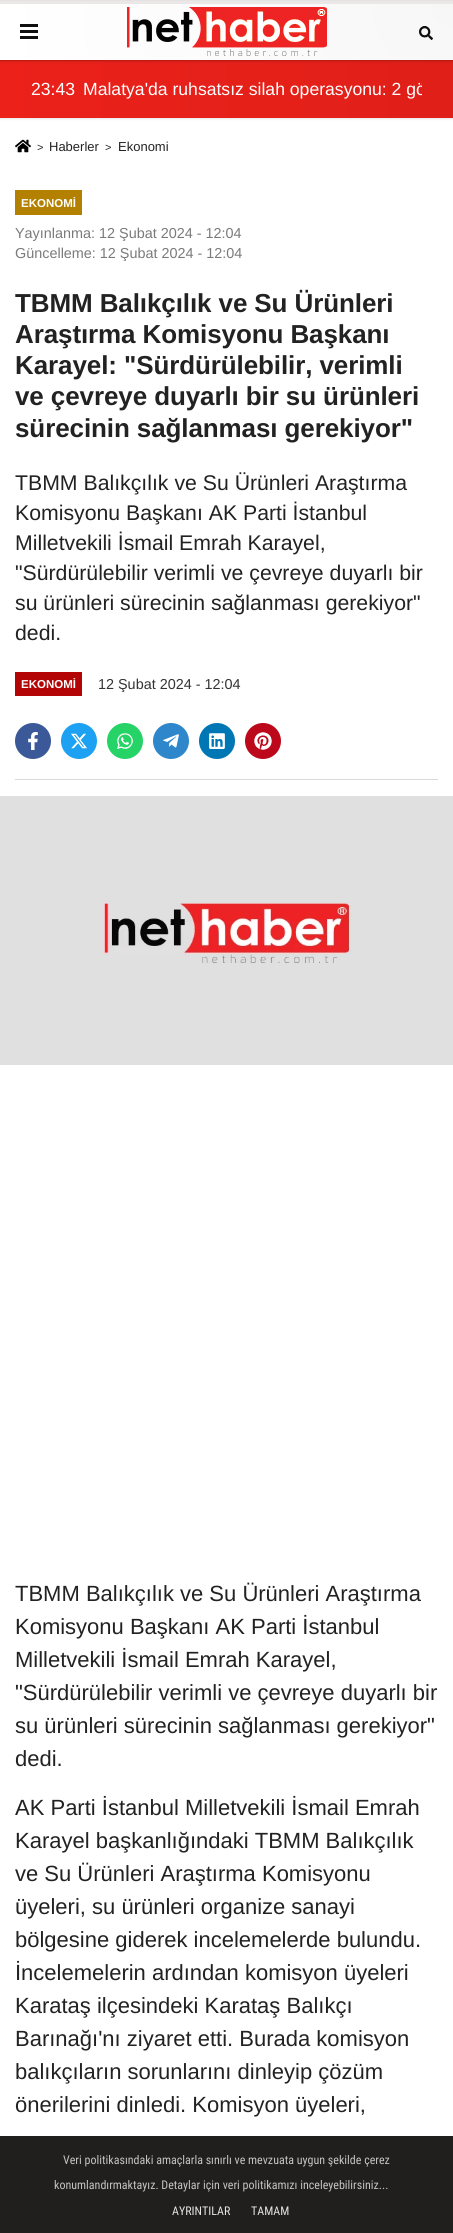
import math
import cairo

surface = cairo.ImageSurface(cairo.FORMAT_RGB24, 453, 2233)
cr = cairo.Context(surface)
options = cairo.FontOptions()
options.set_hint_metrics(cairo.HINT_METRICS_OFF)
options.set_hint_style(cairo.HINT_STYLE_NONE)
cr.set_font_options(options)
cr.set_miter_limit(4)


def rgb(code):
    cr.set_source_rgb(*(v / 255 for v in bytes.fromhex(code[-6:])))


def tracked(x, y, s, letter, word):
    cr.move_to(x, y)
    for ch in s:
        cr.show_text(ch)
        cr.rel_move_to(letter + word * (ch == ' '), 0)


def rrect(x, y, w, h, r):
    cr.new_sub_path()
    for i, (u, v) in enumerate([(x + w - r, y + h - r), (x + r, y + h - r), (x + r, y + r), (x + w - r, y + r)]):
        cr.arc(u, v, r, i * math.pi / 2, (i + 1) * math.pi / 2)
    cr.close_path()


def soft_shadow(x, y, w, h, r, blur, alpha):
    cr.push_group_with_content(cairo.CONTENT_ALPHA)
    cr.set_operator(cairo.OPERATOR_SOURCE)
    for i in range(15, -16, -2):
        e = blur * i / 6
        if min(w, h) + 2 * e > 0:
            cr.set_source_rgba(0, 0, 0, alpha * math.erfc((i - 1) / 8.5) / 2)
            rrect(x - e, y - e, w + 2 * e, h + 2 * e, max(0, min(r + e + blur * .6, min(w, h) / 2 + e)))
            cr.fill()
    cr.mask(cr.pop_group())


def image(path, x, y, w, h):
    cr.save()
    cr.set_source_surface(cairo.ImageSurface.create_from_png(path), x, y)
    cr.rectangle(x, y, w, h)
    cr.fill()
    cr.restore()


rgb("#e6e6e6")
cr.paint()
rgb("#ffffff")
cr.rectangle(0, 118, 453, 2115)
cr.fill()
rgb("#000000")
soft_shadow(0, 62, 453, 57, 0, 1, 0.1)
gradient = cairo.LinearGradient(0, 90, 453, 89)
gradient.add_color_stop_rgba(0, 0.922, 0.129, 0.102, 1)
gradient.add_color_stop_rgba(1, 0.878, 0.122, 0.098, 1)
cr.set_source(gradient)
cr.rectangle(0, 61, 453, 57)
cr.fill()
rgb("#000000")
soft_shadow(0, 2, 453, 60, 0, 1, 0.1)
gradient = cairo.RadialGradient(453, 4, 0, 453, 4, 456)
gradient.add_color_stop_rgba(0, 0.969, 0.969, 0.969, 1)
gradient.add_color_stop_rgba(1, 1, 1, 1, 1)
cr.set_source(gradient)
cr.rectangle(0, 4, 453, 56)
cr.fill()
for x, y, w, h, color in [
    (0, 1, 453, 3, "#ebe7e6"),
    (0, 60, 453, 1, "#bd1a15"),
    (20, 24, 18, 3, "#0f0f0f"),
    (20, 30, 18, 3, "#0f0f0f"),
    (20, 36, 18, 3, "#0f0f0f"),
]:
    rgb(color)
    cr.rectangle(x, y, w, h)
    cr.fill()
image("img/1.png", 127, 7, 200, 49)
image("img/2.png", 419, 26, 14, 14)
image("img/3.png", 15, 139, 16, 14)
rgb("#b38000")
cr.rectangle(15, 190, 67, 25)
cr.fill()
rgb("#b30505")
cr.rectangle(15, 672, 67, 24)
cr.fill()
rgb("#3b5998")
cr.arc(33, 741, 18, 0, 2 * math.pi)
cr.fill()
image("img/4.png", 28, 732, 10, 18)
rgb("#1da1f2")
cr.arc(79, 741, 18, 0, 2 * math.pi)
cr.fill()
image("img/5.png", 71, 733, 16, 16)
rgb("#25d366")
cr.arc(125, 741, 18, 0, 2 * math.pi)
cr.fill()
image("img/6.png", 117, 733, 16, 16)
rgb("#2e87ca")
cr.arc(171, 741, 18, 0, 2 * math.pi)
cr.fill()
image("img/7.png", 163, 734, 16, 14)
rgb("#0077b5")
cr.arc(217, 741, 18, 0, 2 * math.pi)
cr.fill()
image("img/8.png", 209, 733, 16, 16)
rgb("#bd081c")
cr.arc(263, 741, 18, 0, 2 * math.pi)
cr.fill()
image("img/9.png", 254, 732, 18, 18)
rgb("#d9d9d9")
cr.rectangle(15, 779, 423, 1)
cr.fill()
image("img/10.png", 0, 796, 453, 269)
cr.set_source_rgba(0.09, 0.078, 0.078, 0.95)
cr.rectangle(0, 2136, 453, 97)
cr.fill()
cr.select_font_face("Liberation Sans")
cr.set_font_size(17.6)
rgb("#ffffff")
cr.move_to(31, 95)
cr.show_text("23:43")
cr.save()
cr.rectangle(31, 77, 391, 25)
cr.clip()
cr.move_to(83, 95)
cr.show_text("Malatya'da ruhsatsız silah operasyonu: 2 gö")
cr.restore()
cr.set_font_size(11)
rgb("#222222")
cr.move_to(37, 151)
cr.show_text(">")
cr.set_font_size(13)
cr.move_to(49, 151)
cr.show_text("Haberler")
cr.set_font_size(11)
cr.move_to(105, 151)
cr.show_text(">")
cr.set_font_size(13)
cr.move_to(118, 151)
cr.show_text("Ekonomi")
cr.select_font_face("Liberation Sans", cairo.FONT_SLANT_NORMAL, cairo.FONT_WEIGHT_BOLD)
cr.set_font_size(11.5)
rgb("#ffffff")
cr.move_to(21, 207)
cr.show_text("EKONOMİ")
cr.select_font_face("Liberation Sans")
cr.set_font_size(14.4)
rgb("#7a7a7a")
cr.move_to(15, 238)
cr.show_text("Yayınlanma: 12 Şubat 2024 - 12:04")
cr.move_to(15, 258)
cr.show_text("Güncelleme: 12 Şubat 2024 - 12:04")
cr.select_font_face("Liberation Sans", cairo.FONT_SLANT_NORMAL, cairo.FONT_WEIGHT_BOLD)
cr.set_font_size(26)
rgb("#222222")
for x, y, s in [
    (15, 312, "TBMM Balıkçılık ve Su Ürünleri"),
    (15, 343, "Araştırma Komisyonu Başkanı"),
    (15, 374, "Karayel: \"Sürdürülebilir, verimli"),
    (15, 405, "ve çevreye duyarlı bir su ürünleri"),
    (15, 437, "sürecinin sağlanması gerekiyor\""),
]:
    tracked(x, y, s, -0.1, 0)
cr.select_font_face("Liberation Sans")
cr.set_font_size(21.25)
for x, y, s in [
    (15, 490, "TBMM Balıkçılık ve Su Ürünleri Araştırma"),
    (15, 520, "Komisyonu Başkanı AK Parti İstanbul"),
    (15, 550, "Milletvekili İsmail Emrah Karayel,"),
    (15, 580, "\"Sürdürülebilir verimli ve çevreye duyarlı bir"),
    (15, 610, "su ürünleri sürecinin sağlanması gerekiyor\""),
    (15, 640, "dedi."),
]:
    cr.move_to(x, y)
    cr.show_text(s)
cr.select_font_face("Liberation Sans", cairo.FONT_SLANT_NORMAL, cairo.FONT_WEIGHT_BOLD)
cr.set_font_size(11.5)
rgb("#ffffff")
cr.move_to(21, 688)
cr.show_text("EKONOMİ")
cr.select_font_face("Liberation Sans")
cr.set_font_size(14.4)
rgb("#333333")
cr.move_to(98, 689)
cr.show_text("12 Şubat 2024 - 12:04")
cr.set_font_size(22)
rgb("#222222")
for x, y, s in [
    (15, 1601, "TBMM Balıkçılık ve Su Ürünleri Araştırma"),
    (15, 1634, "Komisyonu Başkanı AK Parti İstanbul"),
    (15, 1667, "Milletvekili İsmail Emrah Karayel,"),
    (15, 1700, "\"Sürdürülebilir verimli ve çevreye duyarlı bir"),
    (15, 1733, "su ürünleri sürecinin sağlanması gerekiyor\""),
    (15, 1766, "dedi."),
    (15, 1815, "AK Parti İstanbul Milletvekili İsmail Emrah"),
    (15, 1848, "Karayel başkanlığındaki TBMM Balıkçılık"),
    (15, 1881, "ve Su Ürünleri Araştırma Komisyonu"),
    (15, 1914, "üyeleri, su ürünleri organize sanayi"),
    (15, 1947, "bölgesine giderek incelemelerde bulundu."),
    (15, 1980, "İncelemelerin ardından komisyon üyeleri"),
    (15, 2013, "Karataş ilçesindeki Karataş Balıkçı"),
    (15, 2046, "Barınağı'nı ziyaret etti. Burada komisyon"),
    (15, 2079, "balıkçıların sorunlarını dinleyip çözüm"),
    (15, 2112, "önerilerini dinledi. Komisyon üyeleri,"),
]:
    cr.move_to(x, y)
    cr.show_text(s)
cr.select_font_face("Roboto Condensed")
cr.set_font_size(12)
rgb("#c4c3c3")
cr.move_to(63, 2164)
cr.show_text("Veri politikasındaki amaçlarla sınırlı ve mevzuata uygun şekilde çerez")
cr.move_to(54, 2189)
cr.show_text("konumlandırmaktayız. Detaylar için veri politikamızı inceleyebilirsiniz...")
rgb("#e4e4e4")
cr.move_to(172, 2215)
cr.show_text("AYRINTILAR")
cr.move_to(251, 2215)
cr.show_text("TAMAM")
surface.write_to_png("page.png")
